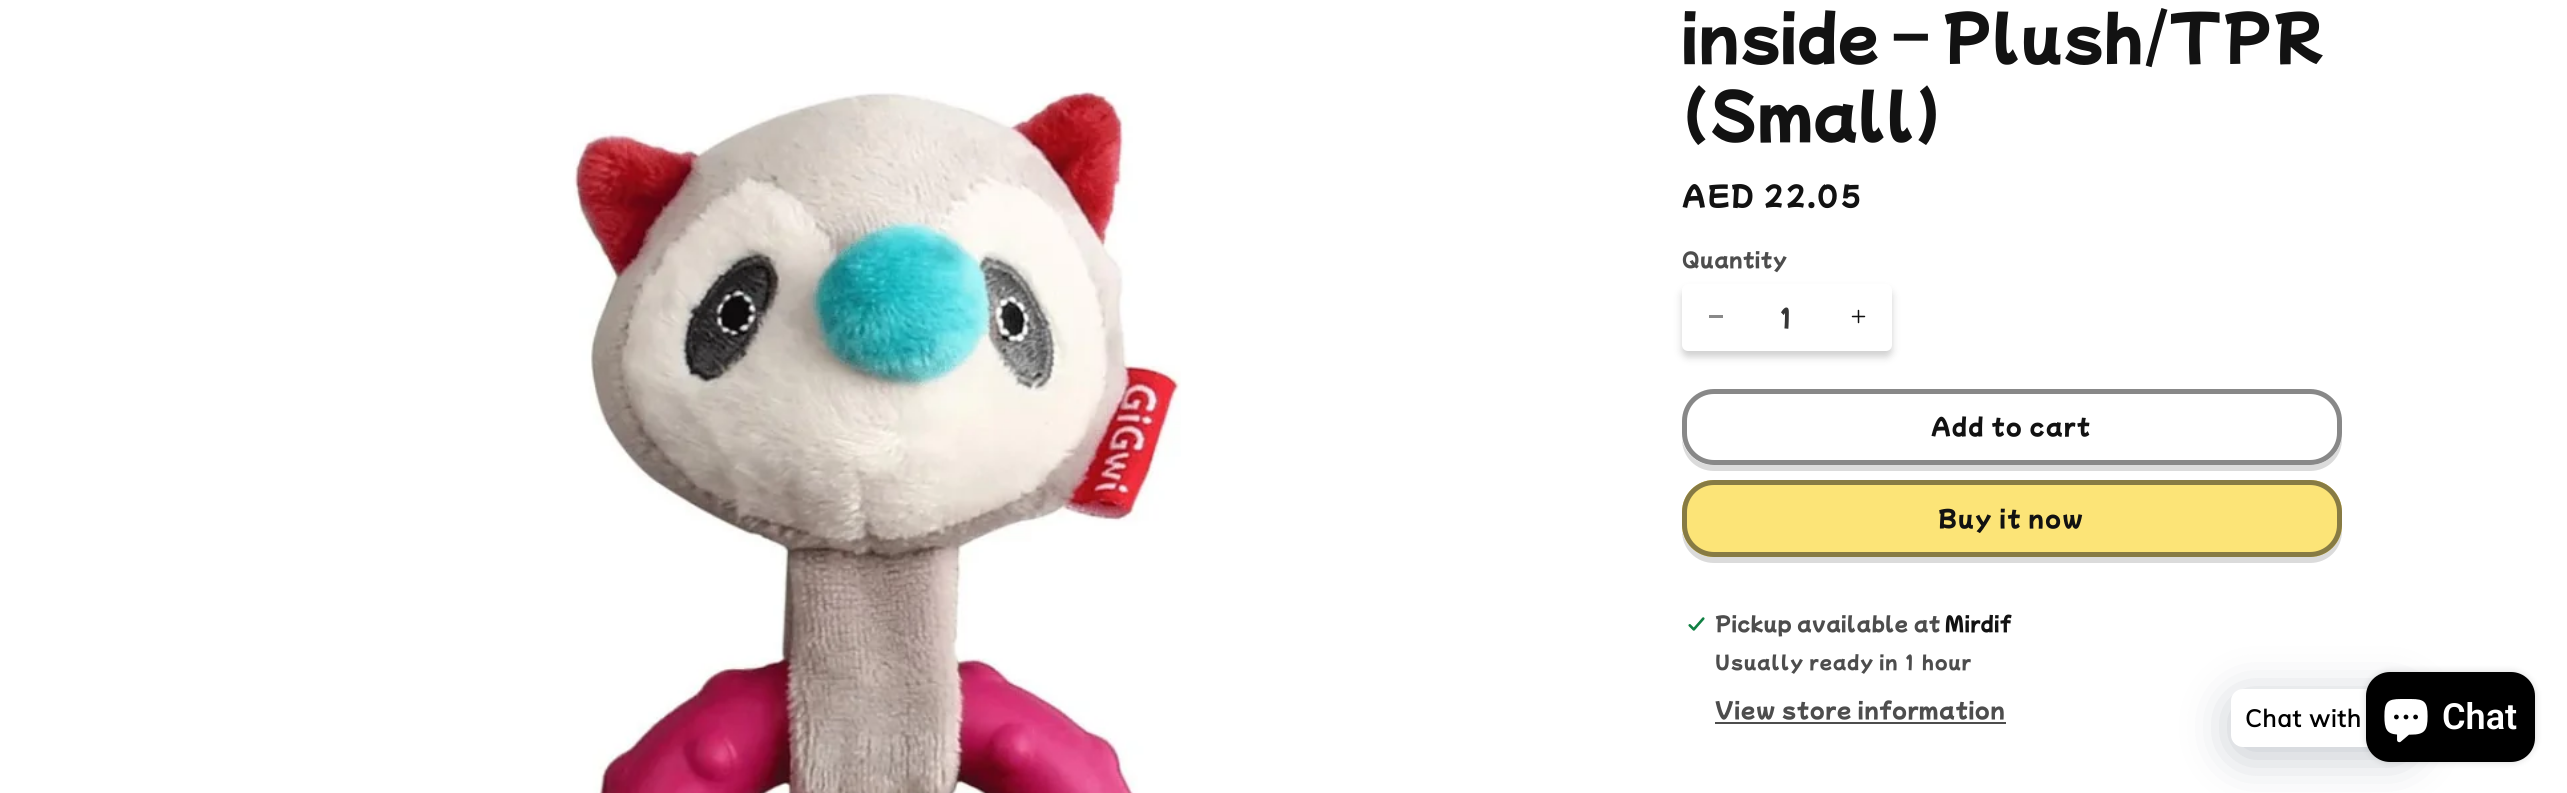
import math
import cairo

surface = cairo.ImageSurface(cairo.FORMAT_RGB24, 2567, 793)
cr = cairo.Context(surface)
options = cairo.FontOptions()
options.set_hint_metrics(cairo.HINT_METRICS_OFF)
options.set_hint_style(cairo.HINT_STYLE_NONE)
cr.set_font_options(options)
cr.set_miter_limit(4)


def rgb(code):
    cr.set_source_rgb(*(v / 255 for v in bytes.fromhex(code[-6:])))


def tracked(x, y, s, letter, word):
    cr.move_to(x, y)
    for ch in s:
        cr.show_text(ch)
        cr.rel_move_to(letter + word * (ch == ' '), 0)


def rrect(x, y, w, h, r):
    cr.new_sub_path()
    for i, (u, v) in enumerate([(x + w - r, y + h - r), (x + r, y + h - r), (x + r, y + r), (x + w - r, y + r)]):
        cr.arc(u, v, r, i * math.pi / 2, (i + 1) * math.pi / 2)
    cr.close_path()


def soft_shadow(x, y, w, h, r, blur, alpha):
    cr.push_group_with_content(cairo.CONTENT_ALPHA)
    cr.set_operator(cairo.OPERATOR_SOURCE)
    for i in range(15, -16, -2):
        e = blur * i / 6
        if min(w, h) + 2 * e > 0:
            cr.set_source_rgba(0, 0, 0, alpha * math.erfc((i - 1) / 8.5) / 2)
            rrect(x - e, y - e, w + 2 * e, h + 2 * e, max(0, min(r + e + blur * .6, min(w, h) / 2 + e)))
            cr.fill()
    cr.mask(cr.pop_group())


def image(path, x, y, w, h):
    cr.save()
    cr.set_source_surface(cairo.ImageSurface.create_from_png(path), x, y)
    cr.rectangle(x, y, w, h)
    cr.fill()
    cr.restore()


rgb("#ffffff")
cr.paint()
image("img/1.png", 573, 90, 608, 703)
rgb("#121212")
soft_shadow(1682, 290, 210, 67, 6, 4, 0.2)
rgb("#ffffff")
rrect(1682, 284, 210, 67, 6)
cr.fill()
rgb("#898989")
cr.rectangle(1709, 315, 14, 3)
cr.fill()
image("img/2.png", 1851, 309, 15, 15)
rgb("#dbdbdb")
cr.new_path()
cr.move_to(1682, 439)
cr.curve_to(1682, 457, 1696, 471, 1714, 471)
cr.line_to(2310, 471)
cr.curve_to(2328, 471, 2342, 457, 2342, 439)
cr.line_to(2342, 421)
cr.line_to(2342, 434)
cr.curve_to(2342, 451, 2327, 465, 2310, 465)
cr.line_to(1713, 465)
cr.curve_to(1698, 465, 1685, 454, 1682, 439)
cr.close_path()
cr.fill()
rgb("#ffffff")
rrect(1682, 389, 660, 76, 32)
cr.fill()
rrect(1684.5, 391.5, 655, 71, 29.5)
cr.set_line_width(5)
cr.stroke()
rrect(1684.5, 391.5, 655, 71, 29.5)
cr.set_source_rgba(0.071, 0.071, 0.071, 0.5)
cr.stroke()
rgb("#dbdbdb")
cr.new_path()
cr.move_to(1682, 531)
cr.curve_to(1682, 549, 1696, 563, 1714, 563)
cr.line_to(2310, 563)
cr.curve_to(2328, 563, 2342, 549, 2342, 531)
cr.line_to(2342, 512)
cr.line_to(2342, 525)
cr.curve_to(2342, 542, 2327, 556, 2310, 556)
cr.line_to(1713, 556)
cr.curve_to(1698, 556, 1685, 545, 1682, 531)
cr.close_path()
cr.fill()
rgb("#fce477")
rrect(1682, 480, 660, 77, 32)
cr.fill()
rrect(1684.5, 482.5, 655, 72, 29.5)
cr.stroke()
rrect(1684.5, 482.5, 655, 72, 29.5)
cr.set_source_rgba(0.071, 0.071, 0.071, 0.5)
cr.stroke()
image("img/3.png", 1687, 617, 18, 14)
rgb("#4d4d4d")
cr.rectangle(1715, 722, 291, 2)
cr.fill()
rgb("#00122e")
soft_shadow(2231, 698, 181, 58, 12, 24, 0.24)
rgb("#ffffff")
rrect(2231, 689, 181, 58, 12)
cr.fill()
rgb("#000000")
soft_shadow(2366, 672, 169, 90, 24, 4, 0.15)
rgb("#000000")
rrect(2366, 672, 169, 90, 24)
cr.fill()
image("img/4.png", 2384, 699, 44, 44)
cr.select_font_face("Mochiy Pop P One")
cr.set_font_size(60)
rgb("#121212")
tracked(1682, 60, "inside – Plush/TPR", 0.9, 0)
tracked(1682, 138, "(Small)", 0.9, 0)
cr.set_font_size(27)
tracked(1682, 206, "AED 22.05", 2, 0)
cr.set_font_size(19.5)
rgb("#4d4d4d")
tracked(1682, 267, "Quantity", 0.6, 0)
cr.set_font_size(24)
rgb("#363636")
cr.move_to(1778, 327)
cr.show_text("1")
cr.set_font_size(22.5)
rgb("#121212")
tracked(1931, 435, "Add to cart", 1.5, 0)
tracked(1938, 527, "Buy it now", 1.5, 0)
cr.set_font_size(19.5)
rgb("#4d4d4d")
tracked(1715, 631, "Pickup available at", 0.6, 0)
rgb("#121212")
tracked(1945, 631, "Mirdif", 0.6, 0)
cr.set_font_size(18)
rgb("#4d4d4d")
tracked(1715, 669, "Usually ready in 1 hour", 1.05, 0)
cr.set_font_size(21)
tracked(1715, 718, "View store information", 0.9, 0)
cr.select_font_face("Roboto SemiBold")
cr.set_font_size(36)
rgb("#ffffff")
cr.move_to(2442, 729)
cr.show_text("Chat")
cr.select_font_face("Muli", cairo.FONT_SLANT_NORMAL, cairo.FONT_WEIGHT_BOLD)
cr.set_font_size(24)
rgb("#000000")
tracked(2245, 727, "Chat with", 0.9, 0)
surface.write_to_png("page.png")
